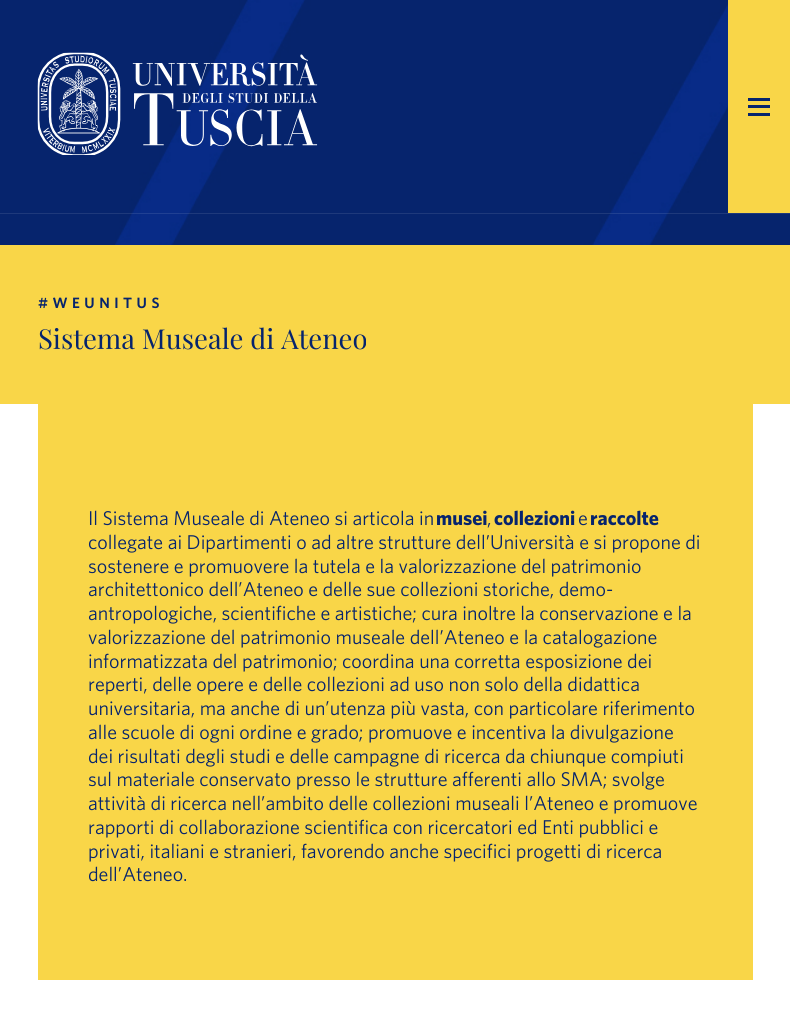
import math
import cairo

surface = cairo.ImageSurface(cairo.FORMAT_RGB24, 790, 1028)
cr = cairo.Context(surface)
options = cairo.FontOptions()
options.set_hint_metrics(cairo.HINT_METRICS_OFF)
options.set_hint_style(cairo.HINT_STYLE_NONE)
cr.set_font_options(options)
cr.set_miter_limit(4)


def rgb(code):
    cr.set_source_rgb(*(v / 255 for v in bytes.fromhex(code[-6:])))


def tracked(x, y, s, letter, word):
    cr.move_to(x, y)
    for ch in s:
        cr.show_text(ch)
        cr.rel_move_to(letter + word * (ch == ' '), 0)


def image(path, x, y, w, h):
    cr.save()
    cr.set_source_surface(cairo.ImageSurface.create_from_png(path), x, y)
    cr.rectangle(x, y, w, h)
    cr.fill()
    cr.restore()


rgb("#ffffff")
cr.paint()
rgb("#06246d")
cr.rectangle(0, 0, 790, 245)
cr.fill()
image("img/1.png", 115, 0, 673, 245)
image("img/2.png", 37, 52, 281, 103)
rgb("#f9d648")
cr.rectangle(728, 0, 62, 213)
cr.fill()
rgb("#06246d")
cr.rectangle(748, 98, 22, 3)
cr.rectangle(748, 105, 22, 3)
cr.rectangle(748, 113, 22, 3)
cr.fill()
cr.set_source_rgba(1, 1, 1, 0.1)
cr.rectangle(0, 213, 790, 1)
cr.fill()
rgb("#f9d648")
cr.rectangle(0, 245, 790, 159)
cr.rectangle(38, 404, 715, 576)
cr.fill()
cr.select_font_face("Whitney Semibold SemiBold")
cr.set_font_size(15)
rgb("#06246d")
tracked(38, 308, "#WEUNITUS", 4.5, 0)
cr.select_font_face("Playfair Display")
cr.set_font_size(27.5)
cr.move_to(38, 349)
cr.show_text("Sistema Museale di Ateneo")
cr.select_font_face("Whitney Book")
cr.set_font_size(20)
cr.move_to(88, 525)
cr.show_text("Il Sistema Museale di Ateneo si articola in")
cr.select_font_face("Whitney", cairo.FONT_SLANT_NORMAL, cairo.FONT_WEIGHT_BOLD)
cr.move_to(436, 525)
cr.show_text("musei")
cr.select_font_face("Whitney Book")
cr.move_to(487, 525)
cr.show_text(",")
cr.select_font_face("Whitney", cairo.FONT_SLANT_NORMAL, cairo.FONT_WEIGHT_BOLD)
cr.move_to(494, 525)
cr.show_text("collezioni")
cr.select_font_face("Whitney Book")
cr.move_to(578, 525)
cr.show_text("e")
cr.select_font_face("Whitney", cairo.FONT_SLANT_NORMAL, cairo.FONT_WEIGHT_BOLD)
cr.move_to(590, 525)
cr.show_text("raccolte")
cr.select_font_face("Whitney Book")
for x, y, s in [
    (88, 549, "collegate ai Dipartimenti o ad altre strutture dell’Università e si propone di"),
    (88, 573, "sostenere e promuovere la tutela e la valorizzazione del patrimonio"),
    (88, 596, "architettonico dell’Ateneo e delle sue collezioni storiche, demo-"),
    (88, 620, "antropologiche, scientifiche e artistiche; cura inoltre la conservazione e la"),
    (88, 644, "valorizzazione del patrimonio museale dell’Ateneo e la catalogazione"),
    (88, 668, "informatizzata del patrimonio; coordina una corretta esposizione dei"),
    (88, 691, "reperti, delle opere e delle collezioni ad uso non solo della didattica"),
    (88, 715, "universitaria, ma anche di un’utenza più vasta, con particolare riferimento"),
    (88, 739, "alle scuole di ogni ordine e grado; promuove e incentiva la divulgazione"),
    (88, 763, "dei risultati degli studi e delle campagne di ricerca da chiunque compiuti"),
    (88, 786, "sul materiale conservato presso le strutture afferenti allo SMA; svolge"),
    (88, 810, "attività di ricerca nell’ambito delle collezioni museali l’Ateneo e promuove"),
    (88, 834, "rapporti di collaborazione scientifica con ricercatori ed Enti pubblici e"),
    (88, 858, "privati, italiani e stranieri, favorendo anche specifici progetti di ricerca"),
    (88, 881, "dell’Ateneo."),
]:
    cr.move_to(x, y)
    cr.show_text(s)
surface.write_to_png("page.png")
